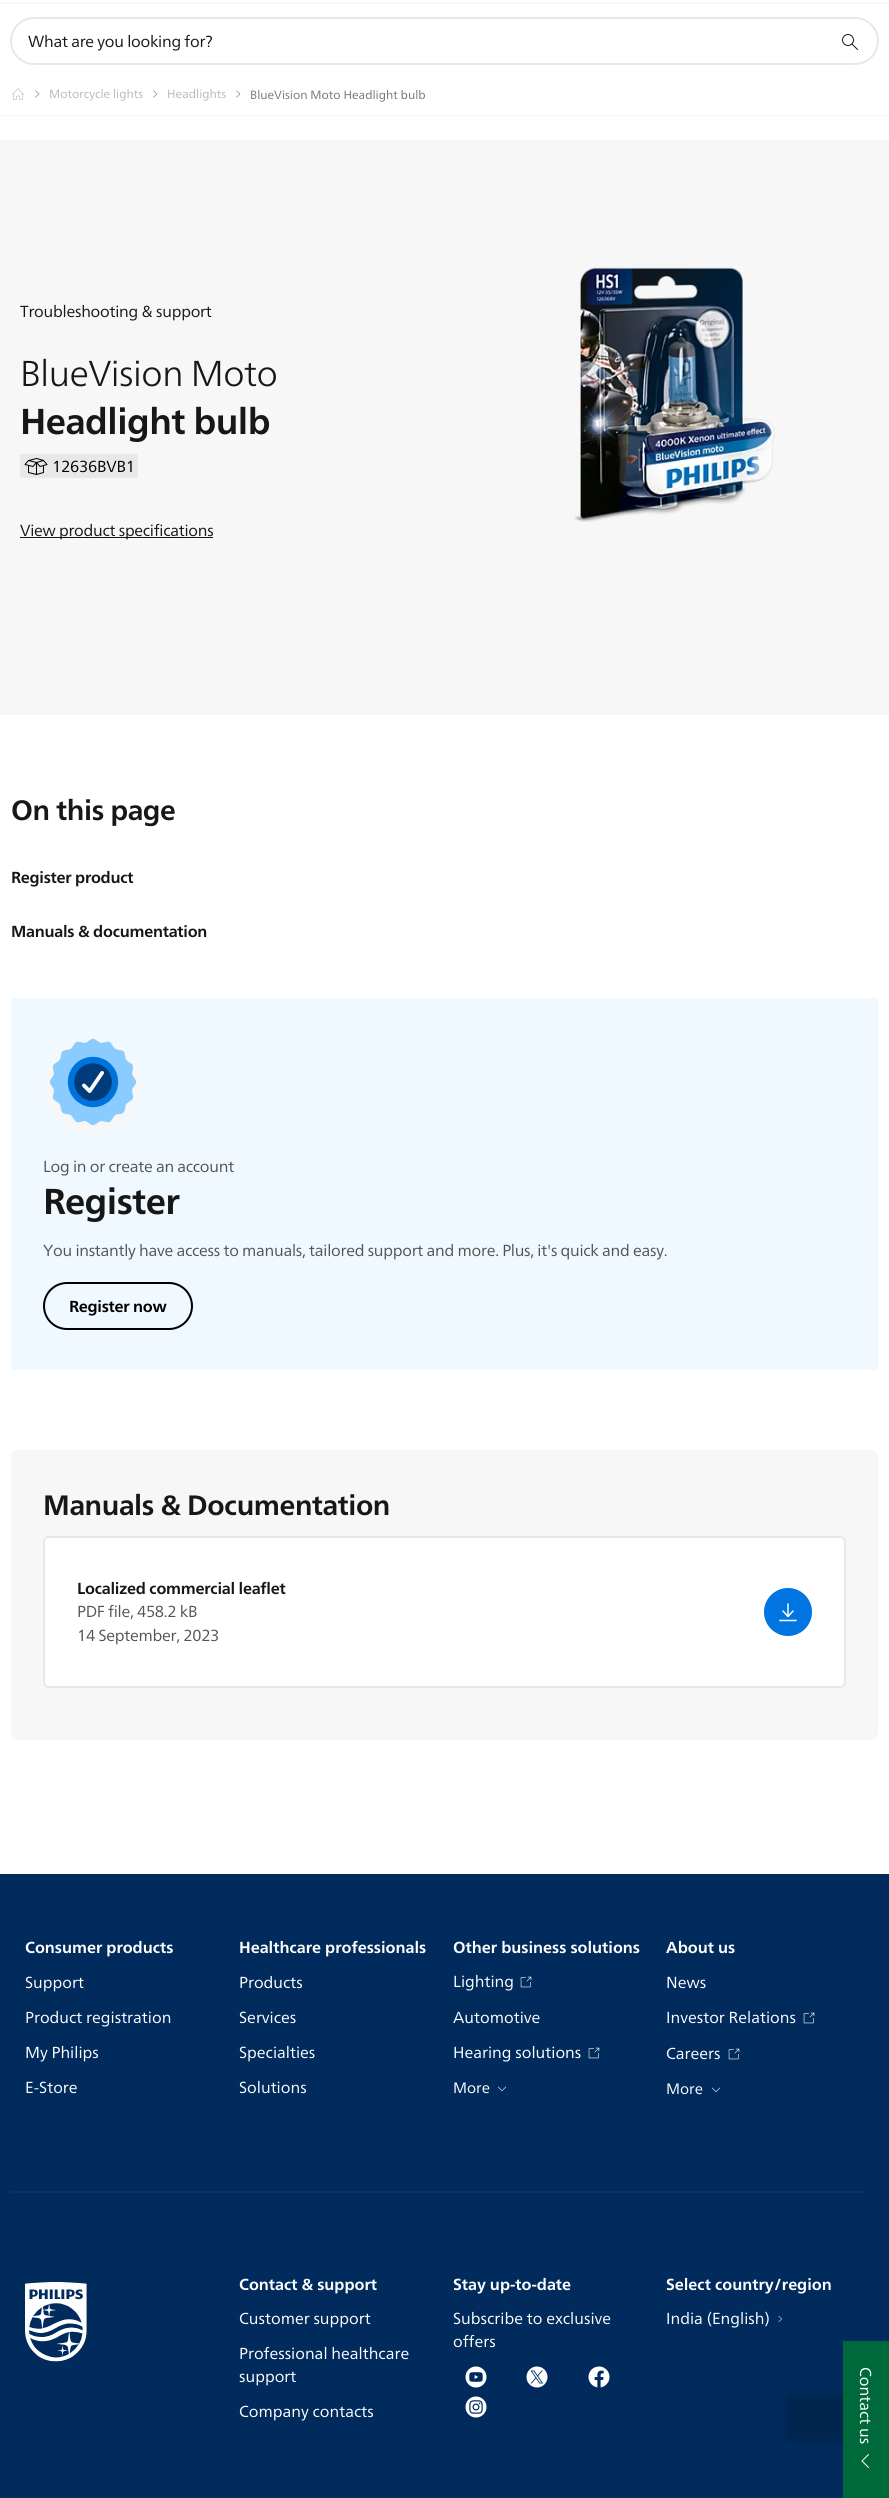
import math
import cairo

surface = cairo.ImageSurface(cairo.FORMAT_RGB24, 889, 2498)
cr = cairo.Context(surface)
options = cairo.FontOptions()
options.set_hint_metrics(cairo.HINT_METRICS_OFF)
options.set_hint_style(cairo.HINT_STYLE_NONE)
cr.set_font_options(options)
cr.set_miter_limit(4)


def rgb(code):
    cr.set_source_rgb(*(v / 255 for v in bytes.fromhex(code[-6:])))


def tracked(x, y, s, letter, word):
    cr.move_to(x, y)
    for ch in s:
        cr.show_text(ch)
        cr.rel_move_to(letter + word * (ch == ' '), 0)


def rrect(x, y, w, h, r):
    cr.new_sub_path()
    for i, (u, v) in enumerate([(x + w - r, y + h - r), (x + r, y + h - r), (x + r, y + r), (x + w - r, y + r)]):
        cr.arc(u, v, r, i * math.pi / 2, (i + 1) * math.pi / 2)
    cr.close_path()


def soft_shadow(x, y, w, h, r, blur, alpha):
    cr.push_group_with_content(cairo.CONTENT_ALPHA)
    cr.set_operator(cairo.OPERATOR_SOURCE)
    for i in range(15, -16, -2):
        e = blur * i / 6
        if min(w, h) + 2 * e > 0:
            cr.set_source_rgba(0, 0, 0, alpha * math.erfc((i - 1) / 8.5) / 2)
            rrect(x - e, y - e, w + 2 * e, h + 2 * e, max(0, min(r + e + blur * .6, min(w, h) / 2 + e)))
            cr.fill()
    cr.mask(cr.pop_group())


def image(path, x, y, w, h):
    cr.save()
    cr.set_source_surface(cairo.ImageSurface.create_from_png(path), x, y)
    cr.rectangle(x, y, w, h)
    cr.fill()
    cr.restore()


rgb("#ffffff")
cr.paint()
rgb("#f7f7f7")
cr.rectangle(0, 2, 889, 2)
cr.fill()
rrect(11, 18, 867, 46, 23)
rgb("#e8e8e8")
cr.stroke()
image("img/1.png", 842, 34, 16, 16)
rgb("#f7f7f7")
cr.rectangle(0, 115, 889, 1)
cr.fill()
image("img/2.png", 12, 88, 12, 12)
image("img/3.png", 35, 90, 5, 8)
image("img/3.png", 153, 90, 5, 8)
image("img/3.png", 236, 90, 5, 8)
cr.rectangle(0, 140, 889, 575)
cr.fill()
rgb("#e8e8e8")
rrect(20, 454, 118, 24, 2)
cr.fill()
image("img/4.png", 24, 458, 24, 17)
rgb("#171717")
cr.rectangle(20, 537, 193, 1)
cr.fill()
image("img/5.png", 574, 267, 202, 255)
rgb("#f0f9ff")
cr.rectangle(11, 998, 867, 372)
cr.fill()
image("img/6.png", 45, 1038, 96, 96)
rrect(44, 1283, 148, 46, 23)
rgb("#000000")
cr.stroke()
rgb("#f7f7f7")
rrect(11, 1450, 867, 290, 6)
cr.fill()
rgb("#ffffff")
rrect(44, 1537, 801, 150, 5)
cr.fill_preserve()
rgb("#e8e8e8")
cr.stroke()
rgb("#0074e0")
cr.arc(788, 1612, 24, 0, 2 * math.pi)
cr.fill()
image("img/7.png", 779, 1603, 18, 19)
rgb("#002b5c")
cr.rectangle(0, 1874, 889, 624)
cr.fill()
image("img/8.png", 520, 1976, 12, 12)
image("img/8.png", 588, 2047, 12, 12)
image("img/9.png", 498, 2086, 8, 5)
image("img/8.png", 803, 2012, 12, 12)
image("img/8.png", 728, 2048, 12, 12)
image("img/9.png", 712, 2087, 8, 5)
rgb("#0a3363")
cr.rectangle(9, 2191, 855, 2)
cr.fill()
image("img/10.png", 465, 2366, 22, 22)
image("img/11.png", 526, 2366, 22, 22)
image("img/12.png", 588, 2366, 22, 22)
image("img/13.png", 465, 2396, 22, 22)
image("img/14.png", 778, 2316, 4, 6)
image("img/15.png", 25, 2282, 62, 80)
rgb("#000000")
soft_shadow(787, 2396, 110, 46, 0, 2.5, 0.15)
rgb("#00693c")
cr.rectangle(843, 2341, 46, 157)
cr.fill()
image("img/16.png", 861, 2454, 8, 14)
cr.select_font_face("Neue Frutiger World")
cr.set_font_size(16)
rgb("#171717")
tracked(28, 47, "What are you looking for?", -0.27, 0)
cr.set_font_size(12)
rgb("#b8b8b8")
cr.move_to(49, 98)
cr.show_text("Motorcycle lights")
cr.move_to(167, 98)
cr.show_text("Headlights")
rgb("#757575")
cr.move_to(250, 99)
cr.show_text("BlueVision Moto Headlight bulb")
cr.set_font_size(16)
rgb("#171717")
tracked(20, 317, "Troubleshooting & support", -0.25, 0)
cr.select_font_face("Neue Frutiger World Light")
cr.set_font_size(36)
tracked(20, 386, "BlueVision Moto", -0.5, 0)
cr.select_font_face("Neue Frutiger World", cairo.FONT_SLANT_NORMAL, cairo.FONT_WEIGHT_BOLD)
tracked(20, 434, "Headlight bulb", -0.5, 0)
cr.select_font_face("Neue Frutiger World")
cr.set_font_size(16)
rgb("#000000")
tracked(52, 472, "12636BVB1", -0.25, 0)
rgb("#171717")
tracked(20, 536, "View product specifications", -0.27, 0)
cr.select_font_face("Neue Frutiger World", cairo.FONT_SLANT_NORMAL, cairo.FONT_WEIGHT_BOLD)
cr.set_font_size(28)
tracked(11, 820, "On this page", -0.4, 0)
cr.set_font_size(16)
tracked(11, 883, "Register product", -0.25, 0)
tracked(11, 937, "Manuals & documentation", -0.25, 0)
cr.select_font_face("Neue Frutiger World")
rgb("#545454")
tracked(43, 1172, "Log in or create an account", -0.27, 0)
cr.select_font_face("Neue Frutiger World", cairo.FONT_SLANT_NORMAL, cairo.FONT_WEIGHT_BOLD)
cr.set_font_size(36)
rgb("#171717")
tracked(43, 1214, "Register", -0.5, 0)
cr.select_font_face("Neue Frutiger World")
cr.set_font_size(16)
rgb("#545454")
tracked(43, 1256, "You instantly have access to manuals, tailored support and more. Plus, it's quick and easy.", -0.27, 0)
cr.select_font_face("Neue Frutiger World", cairo.FONT_SLANT_NORMAL, cairo.FONT_WEIGHT_BOLD)
rgb("#000000")
tracked(69, 1312, "Register now", -0.25, 0)
cr.set_font_size(28)
rgb("#171717")
tracked(43, 1515, "Manuals & Documentation", -0.4, 0)
cr.set_font_size(16)
tracked(77, 1594, "Localized commercial leaflet", -0.25, 0)
cr.select_font_face("Neue Frutiger World")
rgb("#545454")
tracked(77, 1617, "PDF file, 458.2 kB", -0.27, 0)
tracked(77, 1641, "14 September, 2023", -0.27, 0)
cr.select_font_face("Neue Frutiger World", cairo.FONT_SLANT_NORMAL, cairo.FONT_WEIGHT_BOLD)
rgb("#ffffff")
cr.move_to(25, 1953)
cr.show_text("Consumer products")
cr.select_font_face("Neue Frutiger World")
for x, y, s in [
    (25, 1988, "Support"),
    (25, 2023, "Product registration"),
    (25, 2058, "My Philips"),
    (25, 2093, "E-Store"),
]:
    cr.move_to(x, y)
    cr.show_text(s)
cr.select_font_face("Neue Frutiger World", cairo.FONT_SLANT_NORMAL, cairo.FONT_WEIGHT_BOLD)
cr.move_to(239, 1953)
cr.show_text("Healthcare professionals")
cr.select_font_face("Neue Frutiger World")
for x, y, s in [
    (239, 1988, "Products"),
    (239, 2023, "Services"),
    (239, 2058, "Specialties"),
    (239, 2093, "Solutions"),
]:
    cr.move_to(x, y)
    cr.show_text(s)
cr.select_font_face("Neue Frutiger World", cairo.FONT_SLANT_NORMAL, cairo.FONT_WEIGHT_BOLD)
cr.move_to(453, 1953)
cr.show_text("Other business solutions")
cr.select_font_face("Neue Frutiger World")
for x, y, s in [
    (453, 1987, "Lighting"),
    (453, 2023, "Automotive"),
    (453, 2058, "Hearing solutions"),
]:
    cr.move_to(x, y)
    cr.show_text(s)
cr.set_font_size(15)
cr.move_to(453, 2093)
cr.show_text("More")
cr.select_font_face("Neue Frutiger World", cairo.FONT_SLANT_NORMAL, cairo.FONT_WEIGHT_BOLD)
cr.set_font_size(16)
cr.move_to(666, 1953)
cr.show_text("About us")
cr.select_font_face("Neue Frutiger World")
for x, y, s in [
    (666, 1988, "News"),
    (666, 2023, "Investor Relations"),
    (666, 2059, "Careers"),
]:
    cr.move_to(x, y)
    cr.show_text(s)
cr.set_font_size(15)
cr.move_to(666, 2094)
cr.show_text("More")
cr.select_font_face("Neue Frutiger World", cairo.FONT_SLANT_NORMAL, cairo.FONT_WEIGHT_BOLD)
cr.set_font_size(16)
cr.move_to(239, 2290)
cr.show_text("Contact & support")
cr.select_font_face("Neue Frutiger World")
for x, y, s in [
    (239, 2324, "Customer support"),
    (239, 2359, "Professional healthcare"),
    (239, 2382, "support"),
    (239, 2417, "Company contacts"),
]:
    cr.move_to(x, y)
    cr.show_text(s)
cr.select_font_face("Neue Frutiger World", cairo.FONT_SLANT_NORMAL, cairo.FONT_WEIGHT_BOLD)
cr.move_to(453, 2290)
cr.show_text("Stay up-to-date")
cr.select_font_face("Neue Frutiger World")
cr.move_to(453, 2324)
cr.show_text("Subscribe to exclusive")
cr.move_to(453, 2347)
cr.show_text("offers")
cr.select_font_face("Neue Frutiger World", cairo.FONT_SLANT_NORMAL, cairo.FONT_WEIGHT_BOLD)
cr.move_to(666, 2290)
cr.show_text("Select country/region")
cr.select_font_face("Neue Frutiger World")
cr.move_to(666, 2324)
cr.show_text("India (English)")
cr.save()
cr.translate(860, 2367)
cr.rotate(90 * math.pi / 180)
cr.move_to(0, 0)
cr.show_text("Contact us")
cr.restore()
surface.write_to_png("page.png")
